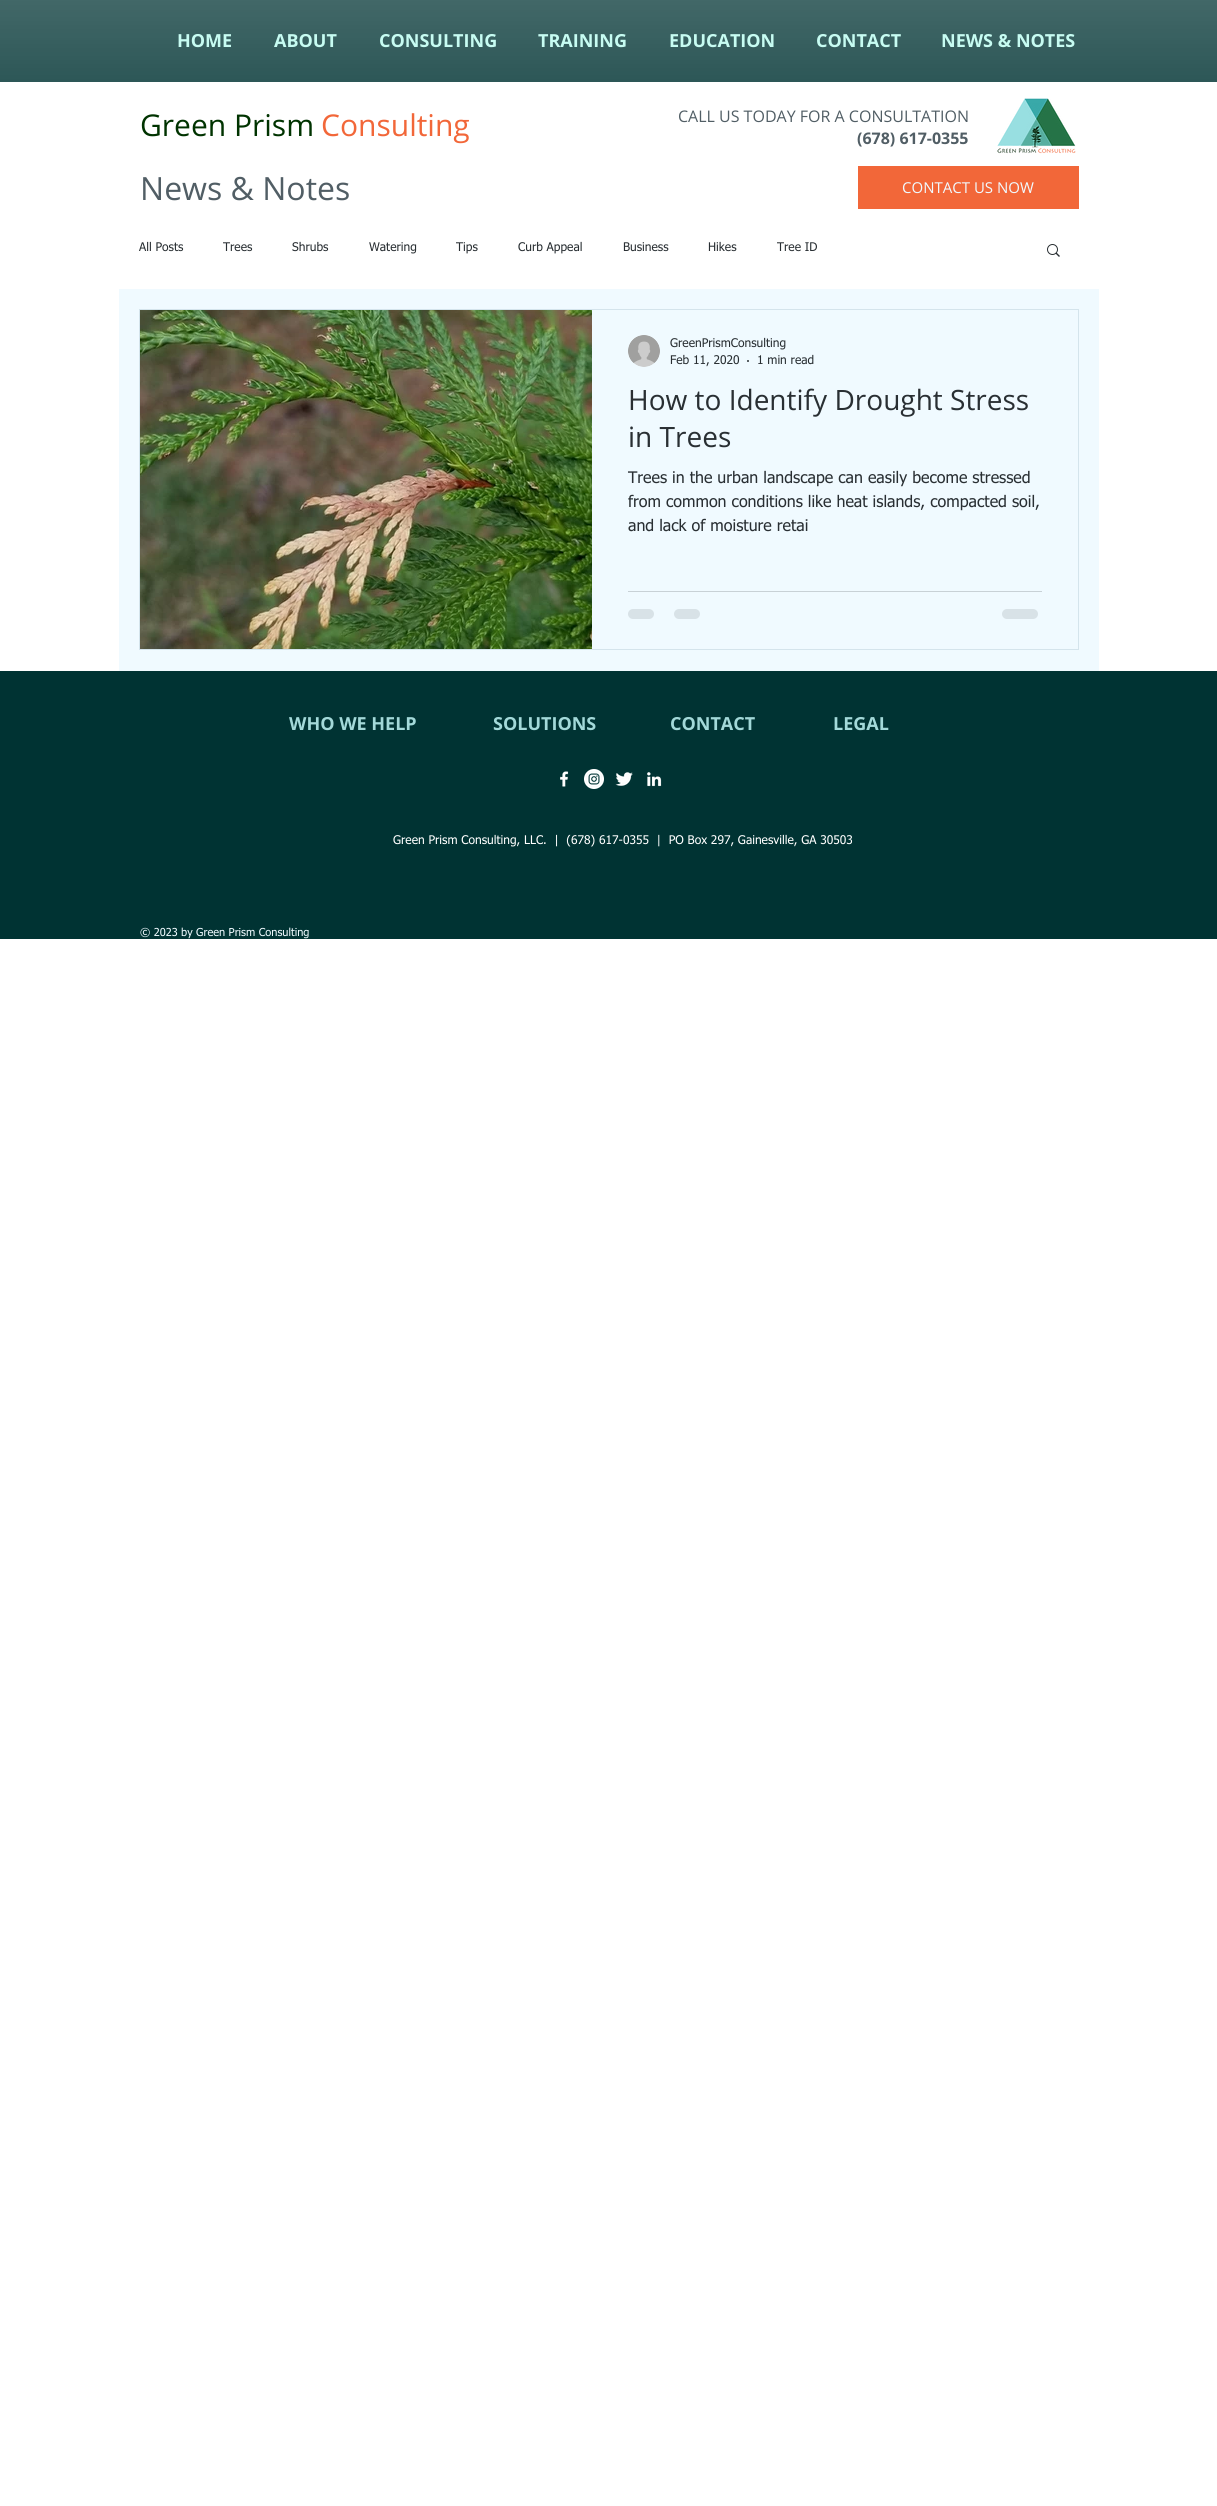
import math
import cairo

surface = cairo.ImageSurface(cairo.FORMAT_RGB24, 1217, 2506)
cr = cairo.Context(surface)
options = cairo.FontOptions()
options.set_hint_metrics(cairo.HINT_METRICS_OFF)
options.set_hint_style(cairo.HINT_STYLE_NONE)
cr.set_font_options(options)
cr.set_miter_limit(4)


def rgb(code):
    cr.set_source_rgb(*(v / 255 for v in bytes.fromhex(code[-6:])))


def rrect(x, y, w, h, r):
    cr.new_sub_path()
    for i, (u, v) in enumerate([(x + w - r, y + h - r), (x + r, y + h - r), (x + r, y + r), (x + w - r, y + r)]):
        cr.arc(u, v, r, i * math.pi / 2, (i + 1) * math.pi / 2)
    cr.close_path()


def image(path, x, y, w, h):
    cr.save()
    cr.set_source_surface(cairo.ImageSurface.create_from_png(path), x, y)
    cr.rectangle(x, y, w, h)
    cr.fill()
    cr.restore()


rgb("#ffffff")
cr.paint()
rgb("#003333")
cr.rectangle(0, 0, 1217, 82)
cr.fill()
image("img/1.png", 0, 0, 1217, 82)
image("img/2.png", 997, 98, 79, 56)
rgb("#f26739")
cr.rectangle(858, 166, 221, 43)
cr.fill()
rgb("#f0faff")
cr.rectangle(119, 289, 980, 382)
cr.fill()
image("img/3.png", 1047, 244, 13, 13)
cr.rectangle(139.5, 309.5, 939, 340)
rgb("#d4e4ec")
cr.set_line_width(1)
cr.stroke()
image("img/4.png", 140, 310, 452, 339)
image("img/5.png", 628, 335, 32, 32)
rgb("#292f33")
cr.arc(748, 361, 1, 0, 2 * math.pi)
cr.fill()
rgb("#c8d1d6")
cr.rectangle(628, 591, 414, 1)
cr.fill()
rgb("#d8e2e7")
rrect(628, 609, 26, 10, 5)
cr.fill()
rrect(674, 609, 26, 10, 5)
cr.fill()
rrect(1002, 609, 36, 10, 5)
cr.fill()
rgb("#003333")
cr.rectangle(0, 671, 1217, 268)
cr.fill()
image("img/6.png", 560, 771, 9, 16)
image("img/7.png", 584, 769, 20, 20)
image("img/8.png", 615, 772, 18, 14)
image("img/9.png", 647, 772, 15, 15)
cr.select_font_face("Open Sans", cairo.FONT_SLANT_NORMAL, cairo.FONT_WEIGHT_BOLD)
cr.set_font_size(18)
rgb("#c7fcf2")
for x, y, s in [
    (177, 47, "HOME"),
    (274, 47, "ABOUT"),
    (379, 47, "CONSULTING"),
    (538, 47, "TRAINING"),
    (669, 47, "EDUCATION"),
    (816, 47, "CONTACT"),
    (941, 47, "NEWS & NOTES"),
]:
    cr.move_to(x, y)
    cr.show_text(s)
cr.select_font_face("Open Sans")
cr.set_font_size(30)
rgb("#003300")
cr.move_to(140, 136)
cr.show_text("Green Prism")
rgb("#f26739")
cr.move_to(321, 136)
cr.show_text("Consulting")
cr.set_font_size(16)
rgb("#515e65")
cr.move_to(678, 122)
cr.show_text("CALL US TODAY FOR A CONSULTATION")
cr.select_font_face("Open Sans", cairo.FONT_SLANT_NORMAL, cairo.FONT_WEIGHT_BOLD)
cr.move_to(857, 144)
cr.show_text("(678) 617-0355")
cr.select_font_face("Open Sans")
cr.set_font_size(15)
rgb("#f0faff")
cr.move_to(902, 193)
cr.show_text("CONTACT US NOW")
cr.set_font_size(32)
rgb("#515e65")
cr.move_to(140, 200)
cr.show_text("News & Notes")
cr.select_font_face("tahoma")
cr.set_font_size(12)
rgb("#292f33")
for x, y, s in [
    (139, 251, "All Posts"),
    (223, 251, "Trees"),
    (292, 251, "Shrubs"),
    (369, 251, "Watering"),
    (456, 251, "Tips"),
    (518, 251, "Curb Appeal"),
    (623, 251, "Business"),
    (708, 251, "Hikes"),
    (777, 251, "Tree ID"),
    (670, 347, "GreenPrismConsulting"),
    (670, 364, "Feb 11, 2020"),
    (757, 364, "1 min read"),
]:
    cr.move_to(x, y)
    cr.show_text(s)
cr.select_font_face("Open Sans")
cr.set_font_size(28)
cr.move_to(628, 410)
cr.show_text("How to Identify Drought Stress")
cr.move_to(628, 447)
cr.show_text("in Trees")
cr.select_font_face("tahoma")
cr.set_font_size(16)
for x, y, s in [
    (628, 483, "Trees in the urban landscape can easily become stressed"),
    (628, 507, "from common conditions like heat islands, compacted soil,"),
    (628, 531, "and lack of moisture retai"),
]:
    cr.move_to(x, y)
    cr.show_text(s)
cr.select_font_face("Open Sans", cairo.FONT_SLANT_NORMAL, cairo.FONT_WEIGHT_BOLD)
cr.set_font_size(18)
rgb("#a3d9d9")
for x, y, s in [
    (289, 730, "WHO WE HELP"),
    (493, 730, "SOLUTIONS"),
    (670, 730, "CONTACT"),
    (833, 730, "LEGAL"),
]:
    cr.move_to(x, y)
    cr.show_text(s)
cr.select_font_face("tahoma")
cr.set_font_size(12)
rgb("#ffffff")
cr.move_to(393, 844)
cr.show_text("Green Prism Consulting, LLC.  |  (678) 617-0355  |  PO Box 297, Gainesville, GA 30503")
cr.set_font_size(11)
rgb("#f0faff")
cr.move_to(140, 936)
cr.show_text("© 2023 by Green Prism Consulting")
surface.write_to_png("page.png")
